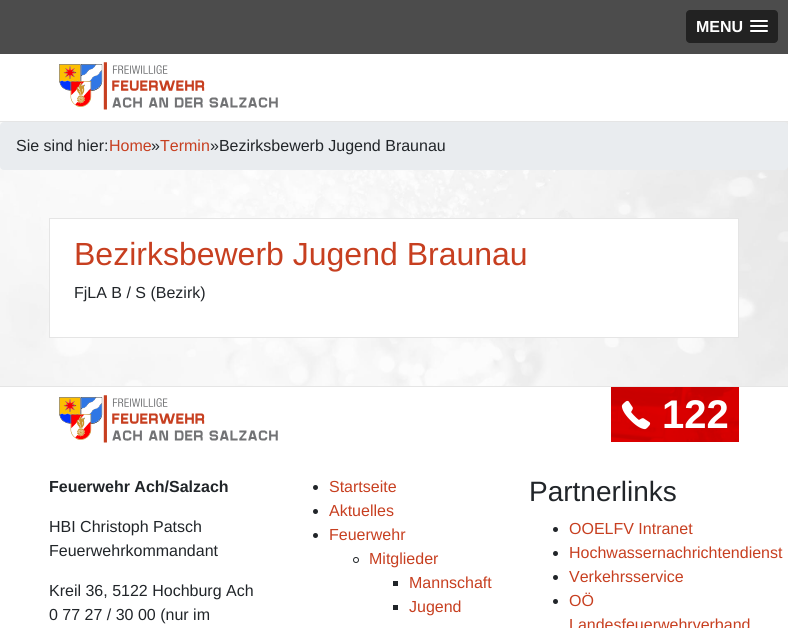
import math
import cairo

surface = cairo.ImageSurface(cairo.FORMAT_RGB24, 788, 628)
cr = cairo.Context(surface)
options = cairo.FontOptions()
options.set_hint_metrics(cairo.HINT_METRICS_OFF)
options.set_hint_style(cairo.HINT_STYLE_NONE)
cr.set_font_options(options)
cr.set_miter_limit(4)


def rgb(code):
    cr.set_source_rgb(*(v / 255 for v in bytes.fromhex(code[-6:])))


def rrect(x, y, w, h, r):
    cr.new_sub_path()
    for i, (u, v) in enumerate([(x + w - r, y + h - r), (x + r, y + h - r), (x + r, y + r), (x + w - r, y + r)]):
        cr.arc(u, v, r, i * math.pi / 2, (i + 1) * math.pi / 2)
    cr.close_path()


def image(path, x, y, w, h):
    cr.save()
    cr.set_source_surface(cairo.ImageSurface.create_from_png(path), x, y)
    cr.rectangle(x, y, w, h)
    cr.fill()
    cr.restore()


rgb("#ffffff")
cr.paint()
rgb("#4c4c4c")
cr.rectangle(0, 0, 788, 54)
cr.fill()
rgb("#222222")
rrect(686, 10, 92, 33, 4)
cr.fill()
rgb("#1a1a1a")
cr.new_path()
cr.move_to(750, 21.5)
cr.curve_to(749, 23.5, 753.5, 23, 753.5, 23)
cr.line_to(764.5, 23)
cr.curve_to(764.5, 23, 769, 23.5, 768, 21.5)
cr.curve_to(767, 22.5, 760.5, 22, 759, 22)
cr.curve_to(757.5, 22, 751, 22.5, 750, 21.5)
cr.close_path()
cr.fill()
rgb("#ffffff")
rrect(750, 20, 18, 2, 1)
cr.fill()
rgb("#1a1a1a")
cr.new_path()
cr.move_to(750, 26.5)
cr.curve_to(749, 28.5, 753.5, 28, 753.5, 28)
cr.line_to(764.5, 28)
cr.curve_to(764.5, 28, 769, 28.5, 768, 26.5)
cr.curve_to(767, 27.5, 760.5, 27, 759, 27)
cr.curve_to(757.5, 27, 751, 27.5, 750, 26.5)
cr.close_path()
cr.fill()
rgb("#ffffff")
rrect(750, 25, 18, 2, 1)
cr.fill()
rgb("#1a1a1a")
cr.new_path()
cr.move_to(750, 31.5)
cr.curve_to(749, 33.5, 753.5, 33, 753.5, 33)
cr.line_to(764.5, 33)
cr.curve_to(764.5, 33, 769, 33.5, 768, 31.5)
cr.curve_to(767, 32.5, 760.5, 32, 759, 32)
cr.curve_to(757.5, 32, 751, 32.5, 750, 31.5)
cr.close_path()
cr.fill()
rgb("#ffffff")
rrect(750, 30, 18, 2, 1)
cr.fill()
rgb("#e5e5e5")
cr.rectangle(0, 121, 788, 1)
cr.fill()
image("img/1.png", 59, 62, 219, 48)
image("img/2.png", 0, 122, 788, 264)
rgb("#e9ecef")
rrect(0, 122, 788, 48, 4)
cr.fill()
rgb("#e5e5e5")
cr.rectangle(0, 386, 788, 1)
cr.fill()
rgb("#ffffff")
cr.rectangle(49.5, 218.5, 689, 119)
cr.fill_preserve()
rgb("#e5e5e5")
cr.set_line_width(1)
cr.stroke()
image("img/1.png", 59, 395, 219, 48)
image("img/3.png", 611, 387, 128, 55)
image("img/4.png", 621, 400, 30, 30)
rgb("#212529")
cr.arc(315.5, 487.5, 2.5, 0, 2 * math.pi)
cr.fill()
cr.arc(315.5, 511.5, 2.5, 0, 2 * math.pi)
cr.fill()
cr.arc(315.5, 535.5, 2.5, 0, 2 * math.pi)
cr.fill()
cr.arc(356, 560, 2.5, 0, 2 * math.pi)
cr.stroke()
cr.rectangle(393, 581, 5, 5)
cr.fill()
cr.rectangle(393, 605, 5, 5)
cr.fill()
cr.arc(555.5, 529.5, 2.5, 0, 2 * math.pi)
cr.fill()
cr.arc(555.5, 553.5, 2.5, 0, 2 * math.pi)
cr.fill()
cr.arc(555.5, 577.5, 2.5, 0, 2 * math.pi)
cr.fill()
cr.arc(555.5, 601.5, 2.5, 0, 2 * math.pi)
cr.fill()
cr.select_font_face("Liberation Sans", cairo.FONT_SLANT_NORMAL, cairo.FONT_WEIGHT_BOLD)
cr.set_font_size(16)
rgb("#ffffff")
cr.move_to(696, 32)
cr.show_text("MENU")
cr.select_font_face("Liberation Sans")
rgb("#212529")
cr.move_to(16, 151)
cr.show_text("Sie sind hier:")
rgb("#c73f20")
cr.move_to(109, 151)
cr.show_text("Home")
rgb("#212529")
cr.move_to(151, 151)
cr.show_text("»")
rgb("#c73f20")
cr.move_to(160, 151)
cr.show_text("Termin")
rgb("#212529")
cr.move_to(210, 151)
cr.show_text("»Bezirksbewerb Jugend Braunau")
cr.set_font_size(32)
rgb("#c73f20")
cr.move_to(74, 265)
cr.show_text("Bezirksbewerb Jugend Braunau")
cr.set_font_size(16)
rgb("#212529")
cr.move_to(74, 298)
cr.show_text("FjLA B / S (Bezirk)")
cr.select_font_face("Liberation Sans", cairo.FONT_SLANT_NORMAL, cairo.FONT_WEIGHT_BOLD)
cr.set_font_size(40)
rgb("#ffffff")
cr.move_to(662, 428)
cr.show_text("122")
cr.set_font_size(16)
rgb("#212529")
cr.move_to(49, 492)
cr.show_text("Feuerwehr Ach/Salzach")
cr.select_font_face("Liberation Sans")
for x, y, s in [
    (49, 532, "HBI Christoph Patsch"),
    (49, 556, "Feuerwehrkommandant"),
    (49, 596, "Kreil 36, 5122 Hochburg Ach"),
    (49, 620, "0 77 27 / 30 00 (nur im"),
]:
    cr.move_to(x, y)
    cr.show_text(s)
rgb("#c73f20")
for x, y, s in [
    (329, 492, "Startseite"),
    (329, 516, "Aktuelles"),
    (329, 540, "Feuerwehr"),
    (369, 564, "Mitglieder"),
    (409, 588, "Mannschaft"),
    (409, 612, "Jugend"),
]:
    cr.move_to(x, y)
    cr.show_text(s)
cr.set_font_size(28)
rgb("#212529")
cr.move_to(529, 501)
cr.show_text("Partnerlinks")
cr.set_font_size(16)
rgb("#c73f20")
for x, y, s in [
    (569, 534, "OOELFV Intranet"),
    (569, 558, "Hochwassernachrichtendienst"),
    (569, 582, "Verkehrsservice"),
    (569, 606, "OÖ"),
    (569, 630, "Landesfeuerwehrverband"),
]:
    cr.move_to(x, y)
    cr.show_text(s)
surface.write_to_png("page.png")
